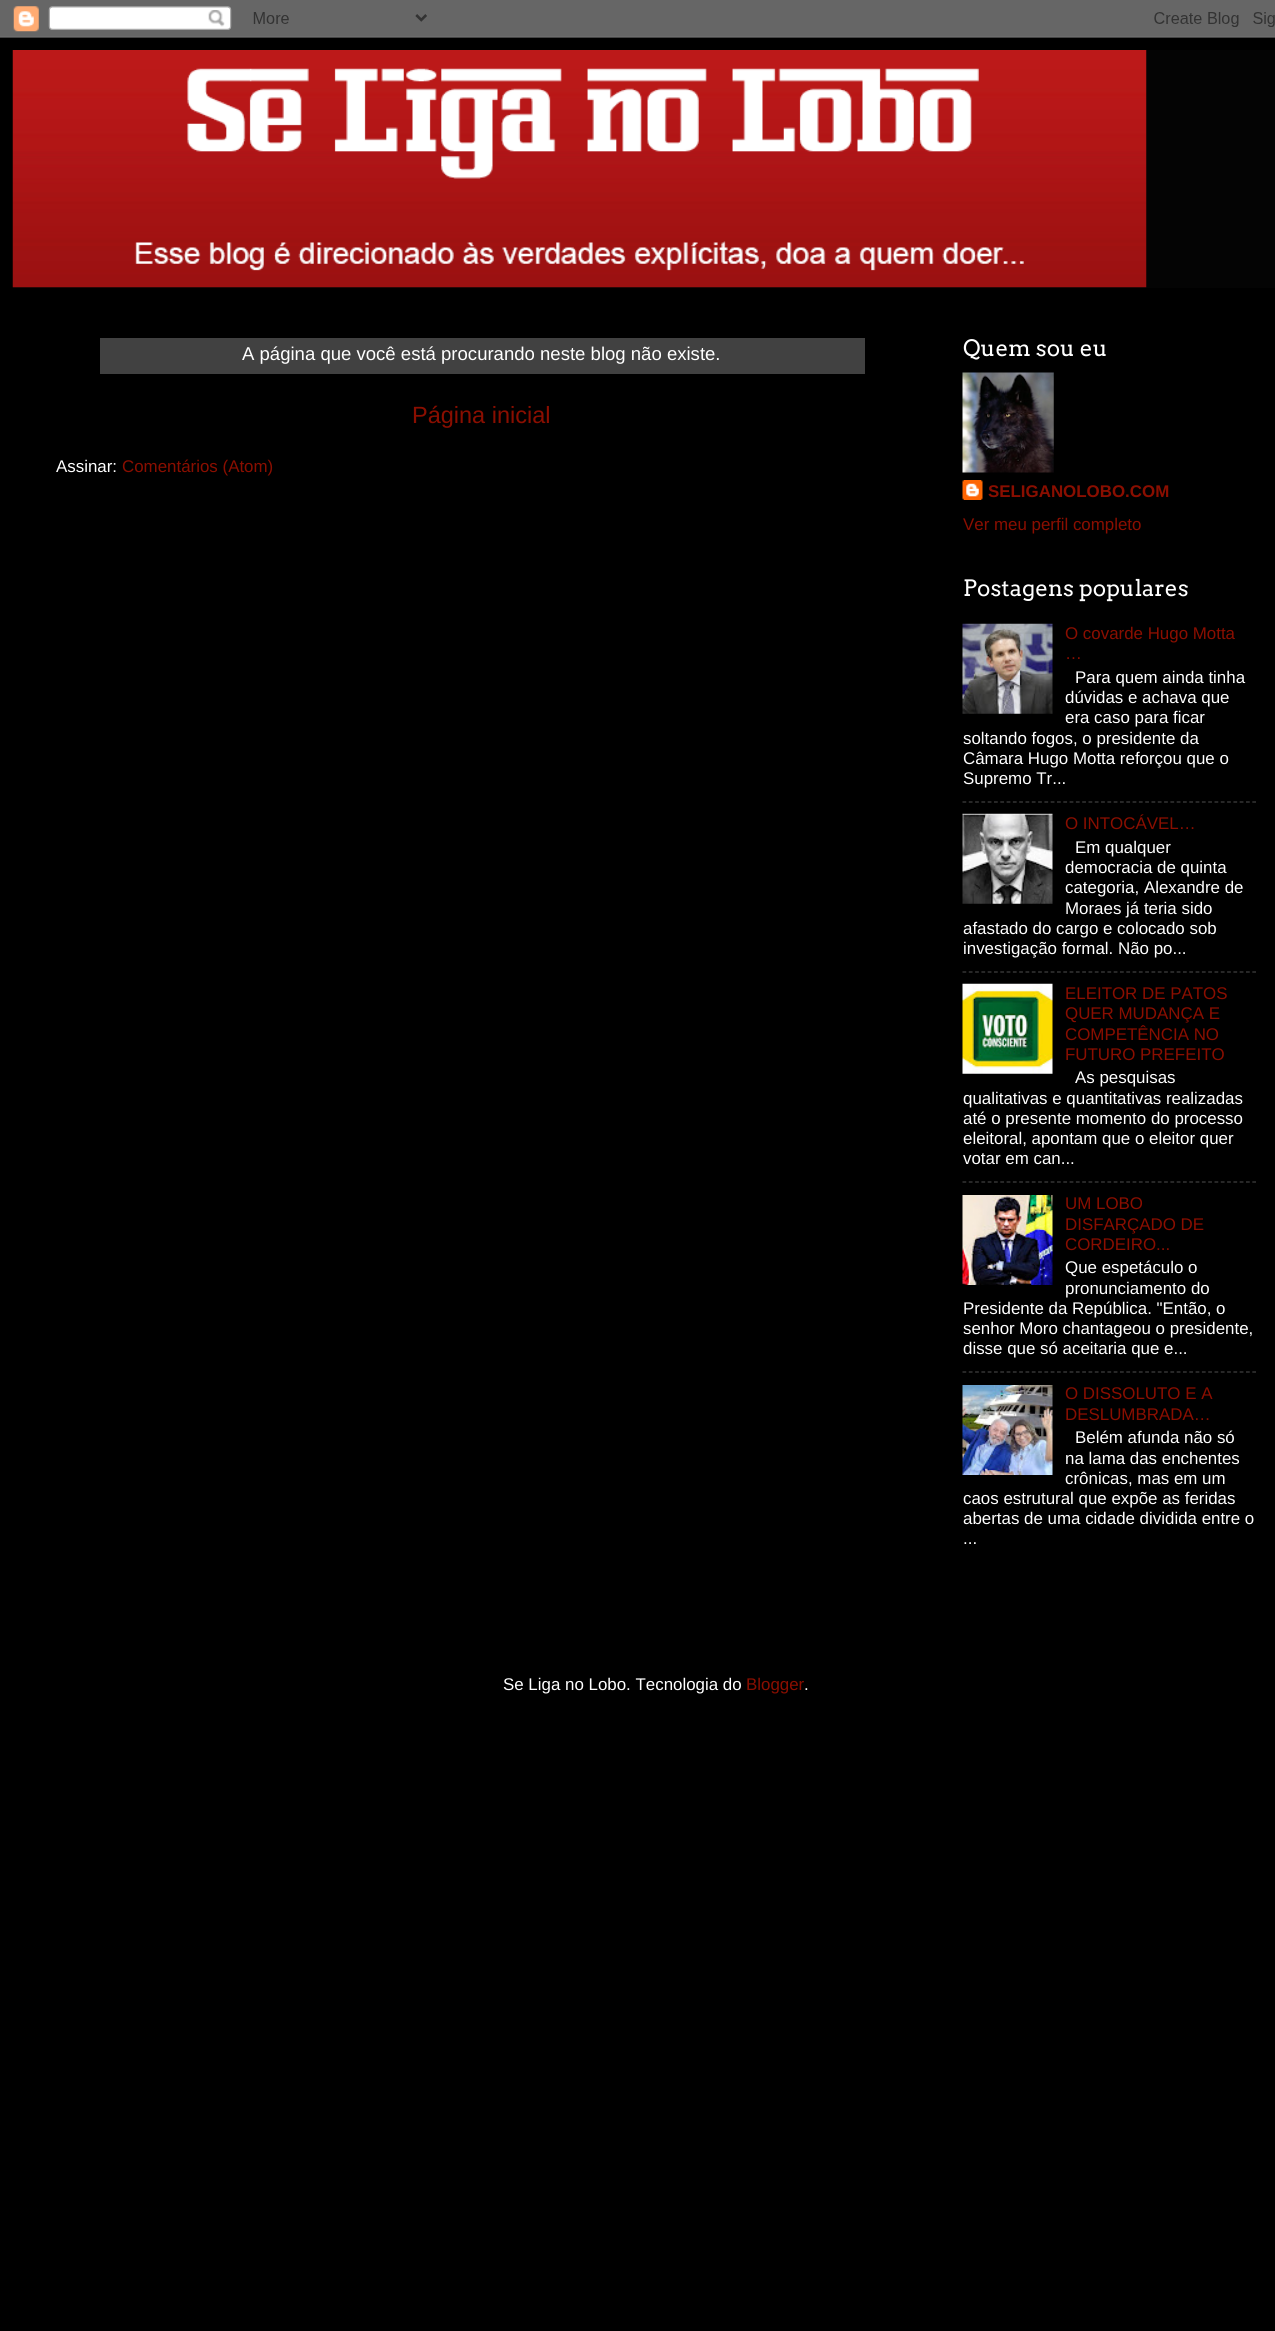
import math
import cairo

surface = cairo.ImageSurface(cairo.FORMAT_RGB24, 1275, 2331)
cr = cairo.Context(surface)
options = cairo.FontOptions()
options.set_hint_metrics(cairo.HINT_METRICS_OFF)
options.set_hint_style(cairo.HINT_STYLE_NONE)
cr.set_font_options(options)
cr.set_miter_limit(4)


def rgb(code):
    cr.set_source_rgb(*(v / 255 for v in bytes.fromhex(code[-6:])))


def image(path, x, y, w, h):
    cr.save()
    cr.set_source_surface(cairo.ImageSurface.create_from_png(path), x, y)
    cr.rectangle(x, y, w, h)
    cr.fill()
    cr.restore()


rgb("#000000")
cr.paint()
image("img/1.png", 0, 0, 1275, 38)
rgb("#040404")
cr.rectangle(13, 50, 1262, 238)
cr.fill()
image("img/2.png", 12, 50, 1135, 238)
rgb("#414141")
cr.rectangle(100, 338, 765, 36)
cr.fill()
image("img/3.png", 962, 372, 92, 101)
image("img/4.png", 962, 480, 21, 20)
image("img/5.png", 962, 623, 91, 91)
cr.new_path()
cr.move_to(962.5, 802)
cr.line_to(1256, 802)
rgb("#404040")
cr.set_line_width(1.2)
cr.set_dash([3.75, 2.55])
cr.stroke()
image("img/6.png", 962, 813, 91, 91)
cr.new_path()
cr.move_to(962.5, 972)
cr.line_to(1256, 972)
cr.stroke()
image("img/7.png", 962, 983, 91, 91)
cr.new_path()
cr.move_to(962.5, 1182)
cr.line_to(1256, 1182)
cr.stroke()
image("img/8.png", 962, 1195, 91, 90)
cr.new_path()
cr.move_to(962.5, 1372)
cr.line_to(1256, 1372)
cr.stroke()
image("img/9.png", 962, 1385, 91, 90)
cr.select_font_face("Liberation Sans")
cr.set_font_size(18.55)
rgb("#ffffff")
cr.move_to(242, 360)
cr.show_text("A página que você está procurando neste blog não existe.")
cr.set_font_size(23.5)
rgb("#8a0e00")
cr.move_to(412, 423)
cr.show_text("Página inicial")
cr.set_font_size(16.9)
rgb("#ffffff")
cr.move_to(56, 472)
cr.show_text("Assinar:")
rgb("#8a0e00")
cr.move_to(122, 472)
cr.show_text("Comentários (Atom)")
cr.select_font_face("Arvo")
cr.set_font_size(22.5)
rgb("#ffffff")
cr.move_to(963, 356)
cr.show_text("Quem sou eu")
cr.select_font_face("Liberation Sans", cairo.FONT_SLANT_NORMAL, cairo.FONT_WEIGHT_BOLD)
cr.set_font_size(16.9)
rgb("#8a0e00")
cr.move_to(988, 497)
cr.show_text("SELIGANOLOBO.COM")
cr.select_font_face("Liberation Sans")
cr.move_to(963, 530)
cr.show_text("Ver meu perfil completo")
cr.select_font_face("Arvo")
cr.set_font_size(22.5)
rgb("#ffffff")
cr.move_to(963, 596)
cr.show_text("Postagens populares")
cr.select_font_face("Liberation Sans")
cr.set_font_size(16.9)
rgb("#8a0e00")
cr.move_to(1065, 639)
cr.show_text("O covarde Hugo Motta")
cr.move_to(1065, 659)
cr.show_text("…")
rgb("#ffffff")
for x, y, s in [
    (1075, 683, "Para quem ainda tinha"),
    (1065, 703, "dúvidas e achava que"),
    (1065, 723, "era caso para ficar"),
    (963, 744, "soltando fogos, o presidente da"),
    (963, 764, "Câmara Hugo Motta reforçou que o"),
    (963, 784, "Supremo Tr..."),
]:
    cr.move_to(x, y)
    cr.show_text(s)
rgb("#8a0e00")
cr.move_to(1065, 829)
cr.show_text("O INTOCÁVEL…")
rgb("#ffffff")
for x, y, s in [
    (1075, 853, "Em qualquer"),
    (1065, 873, "democracia de quinta"),
    (1065, 893, "categoria, Alexandre de"),
    (1065, 914, "Moraes já teria sido"),
    (963, 934, "afastado do cargo e colocado sob"),
    (963, 954, "investigação formal. Não po..."),
]:
    cr.move_to(x, y)
    cr.show_text(s)
rgb("#8a0e00")
for x, y, s in [
    (1065, 999, "ELEITOR DE PATOS"),
    (1065, 1019, "QUER MUDANÇA E"),
    (1065, 1040, "COMPETÊNCIA NO"),
    (1065, 1060, "FUTURO PREFEITO"),
]:
    cr.move_to(x, y)
    cr.show_text(s)
rgb("#ffffff")
for x, y, s in [
    (1075, 1083, "As pesquisas"),
    (963, 1104, "qualitativas e quantitativas realizadas"),
    (963, 1124, "até o presente momento do processo"),
    (963, 1144, "eleitoral, apontam que o eleitor quer"),
    (963, 1164, "votar em can..."),
]:
    cr.move_to(x, y)
    cr.show_text(s)
rgb("#8a0e00")
for x, y, s in [
    (1065, 1209, "UM LOBO"),
    (1065, 1230, "DISFARÇADO DE"),
    (1065, 1250, "CORDEIRO..."),
]:
    cr.move_to(x, y)
    cr.show_text(s)
rgb("#ffffff")
for x, y, s in [
    (1065, 1273, "Que espetáculo o"),
    (1065, 1294, "pronunciamento do"),
    (963, 1314, "Presidente da República. \"Então, o"),
    (963, 1334, "senhor Moro chantageou o presidente,"),
    (963, 1354, "disse que só aceitaria que e..."),
]:
    cr.move_to(x, y)
    cr.show_text(s)
rgb("#8a0e00")
cr.move_to(1065, 1399)
cr.show_text("O DISSOLUTO E A")
cr.move_to(1065, 1420)
cr.show_text("DESLUMBRADA…")
rgb("#ffffff")
for x, y, s in [
    (1075, 1443, "Belém afunda não só"),
    (1065, 1464, "na lama das enchentes"),
    (1065, 1484, "crônicas, mas em um"),
    (963, 1504, "caos estrutural que expõe as feridas"),
    (963, 1524, "abertas de uma cidade dividida entre o"),
    (963, 1544, "..."),
    (503, 1690, "Se Liga no Lobo. Tecnologia do"),
]:
    cr.move_to(x, y)
    cr.show_text(s)
rgb("#8a0e00")
cr.move_to(746, 1690)
cr.show_text("Blogger")
rgb("#ffffff")
cr.move_to(804, 1690)
cr.show_text(".")
surface.write_to_png("page.png")
